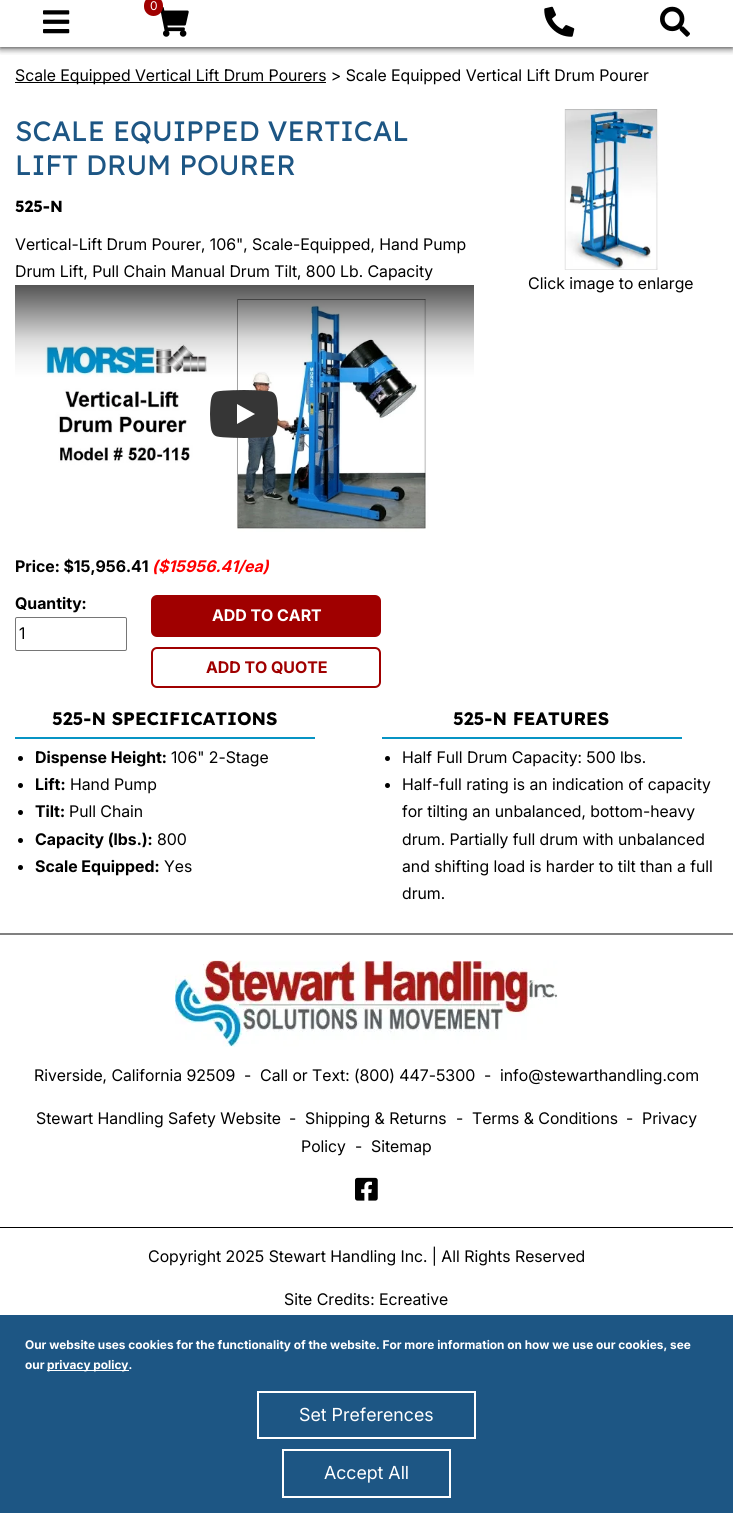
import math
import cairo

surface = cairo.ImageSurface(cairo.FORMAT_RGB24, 733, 1513)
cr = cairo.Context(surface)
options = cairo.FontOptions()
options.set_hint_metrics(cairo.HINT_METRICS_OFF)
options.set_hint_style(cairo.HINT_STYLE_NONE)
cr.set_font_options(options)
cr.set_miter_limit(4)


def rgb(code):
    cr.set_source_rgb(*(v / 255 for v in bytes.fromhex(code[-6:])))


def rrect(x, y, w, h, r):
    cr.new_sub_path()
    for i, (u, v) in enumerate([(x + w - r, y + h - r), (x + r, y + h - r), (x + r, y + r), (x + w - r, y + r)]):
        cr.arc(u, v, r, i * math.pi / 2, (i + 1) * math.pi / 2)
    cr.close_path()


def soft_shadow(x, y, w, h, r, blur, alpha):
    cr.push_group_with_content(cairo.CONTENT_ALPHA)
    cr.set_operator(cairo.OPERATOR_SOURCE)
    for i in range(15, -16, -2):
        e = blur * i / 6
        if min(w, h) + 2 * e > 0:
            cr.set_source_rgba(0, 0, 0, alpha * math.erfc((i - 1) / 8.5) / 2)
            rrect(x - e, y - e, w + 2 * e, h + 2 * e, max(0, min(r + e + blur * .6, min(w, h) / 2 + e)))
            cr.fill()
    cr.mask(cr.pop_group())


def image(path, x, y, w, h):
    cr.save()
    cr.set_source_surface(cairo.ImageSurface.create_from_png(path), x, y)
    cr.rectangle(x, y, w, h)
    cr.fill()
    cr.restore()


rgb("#ffffff")
cr.paint()
cr.save()
cr.rectangle(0, 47, 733, 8)
cr.clip()
rgb("#000000")
soft_shadow(0, 0, 733, 47, 0, 4, 1)
cr.restore()
image("img/1.png", 43, 10, 27, 24)
image("img/2.png", 160, 6, 29, 31)
rgb("#a00000")
rrect(144, -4, 19, 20, 9.5)
cr.fill()
image("img/3.png", 544, 6, 31, 31)
image("img/4.png", 660, 6, 30, 31)
rgb("#000000")
cr.rectangle(15, 82, 311, 1)
cr.fill()
image("img/5.png", 15, 285, 459, 258)
image("img/6.png", 210, 390, 68, 48)
rrect(15.5, 617.5, 111, 33, 1.5)
rgb("#767676")
cr.set_line_width(1)
cr.stroke()
rgb("#a00000")
rrect(152, 596, 228, 40, 5)
cr.fill_preserve()
cr.set_line_width(2)
cr.stroke()
rrect(152, 648, 228, 39, 5)
cr.stroke()
image("img/7.png", 564, 109, 95, 161)
rgb("#0794c4")
cr.rectangle(15, 737, 300, 2)
cr.fill()
rgb("#000000")
cr.arc(20.5, 758.5, 2.5, 0, 2 * math.pi)
cr.fill()
cr.arc(20.5, 785.5, 2.5, 0, 2 * math.pi)
cr.fill()
cr.arc(20.5, 812.5, 2.5, 0, 2 * math.pi)
cr.fill()
cr.arc(20.5, 840.5, 2.5, 0, 2 * math.pi)
cr.fill()
cr.arc(20.5, 867.5, 2.5, 0, 2 * math.pi)
cr.fill()
rgb("#0794c4")
cr.rectangle(382, 737, 300, 2)
cr.fill()
rgb("#000000")
cr.arc(387.5, 758.5, 2.5, 0, 2 * math.pi)
cr.fill()
cr.arc(387.5, 785.5, 2.5, 0, 2 * math.pi)
cr.fill()
rgb("#808080")
cr.rectangle(0, 933, 733, 2)
cr.fill()
rgb("#000000")
cr.rectangle(0, 1227, 733, 1)
cr.fill()
image("img/8.png", 175, 960, 383, 87)
image("img/9.png", 355, 1177, 23, 24)
rgb("#1d5684")
cr.rectangle(0, 1315, 733, 198)
cr.fill()
rgb("#ffffff")
cr.rectangle(47, 1370, 82, 1)
cr.fill()
cr.rectangle(258, 1392, 217, 46)
cr.stroke()
cr.rectangle(283, 1450, 167, 47)
cr.stroke()
cr.select_font_face("Inter")
cr.set_font_size(12)
cr.move_to(150, 10)
cr.show_text("0")
cr.set_font_size(16)
rgb("#000000")
cr.move_to(15, 81)
cr.show_text("Scale Equipped Vertical Lift Drum Pourers > Scale Equipped Vertical Lift Drum Pourer")
cr.select_font_face("Lexend")
cr.set_font_size(28)
rgb("#1d5684")
cr.move_to(15, 141)
cr.show_text("SCALE EQUIPPED VERTICAL")
cr.move_to(15, 175)
cr.show_text("LIFT DRUM POURER")
cr.select_font_face("Lexend", cairo.FONT_SLANT_NORMAL, cairo.FONT_WEIGHT_BOLD)
cr.set_font_size(16)
rgb("#000000")
cr.move_to(15, 212)
cr.show_text("525-N")
cr.select_font_face("Inter")
cr.move_to(15, 250)
cr.show_text("Vertical-Lift Drum Pourer, 106\", Scale-Equipped, Hand Pump")
cr.move_to(15, 277)
cr.show_text("Drum Lift, Pull Chain Manual Drum Tilt, 800 Lb. Capacity")
cr.select_font_face("Inter", cairo.FONT_SLANT_NORMAL, cairo.FONT_WEIGHT_BOLD)
cr.move_to(15, 572)
cr.show_text("Price: $15,956.41")
cr.select_font_face("Inter", cairo.FONT_SLANT_ITALIC, cairo.FONT_WEIGHT_BOLD)
rgb("#ff0000")
cr.move_to(152, 572)
cr.show_text("($15956.41/ea)")
cr.select_font_face("Inter", cairo.FONT_SLANT_NORMAL, cairo.FONT_WEIGHT_BOLD)
rgb("#000000")
cr.move_to(15, 609)
cr.show_text("Quantity:")
cr.select_font_face("Inter")
cr.move_to(19, 639)
cr.show_text("1")
cr.select_font_face("Inter", cairo.FONT_SLANT_NORMAL, cairo.FONT_WEIGHT_BOLD)
rgb("#ffffff")
cr.move_to(212, 621)
cr.show_text("ADD TO CART")
rgb("#a00000")
cr.move_to(206, 673)
cr.show_text("ADD TO QUOTE")
cr.select_font_face("Inter")
rgb("#000000")
cr.move_to(528, 289)
cr.show_text("Click image to enlarge")
cr.select_font_face("Lexend", cairo.FONT_SLANT_NORMAL, cairo.FONT_WEIGHT_BOLD)
cr.set_font_size(18)
cr.move_to(52, 725)
cr.show_text("525-N SPECIFICATIONS")
cr.select_font_face("Inter", cairo.FONT_SLANT_NORMAL, cairo.FONT_WEIGHT_BOLD)
cr.set_font_size(16)
cr.move_to(35, 763)
cr.show_text("Dispense Height:")
cr.select_font_face("Inter")
cr.move_to(171, 763)
cr.show_text("106\" 2-Stage")
cr.select_font_face("Inter", cairo.FONT_SLANT_NORMAL, cairo.FONT_WEIGHT_BOLD)
cr.move_to(35, 790)
cr.show_text("Lift:")
cr.select_font_face("Inter")
cr.move_to(70, 790)
cr.show_text("Hand Pump")
cr.select_font_face("Inter", cairo.FONT_SLANT_NORMAL, cairo.FONT_WEIGHT_BOLD)
cr.move_to(35, 817)
cr.show_text("Tilt:")
cr.select_font_face("Inter")
cr.move_to(69, 817)
cr.show_text("Pull Chain")
cr.select_font_face("Inter", cairo.FONT_SLANT_NORMAL, cairo.FONT_WEIGHT_BOLD)
cr.move_to(35, 845)
cr.show_text("Capacity (lbs.):")
cr.select_font_face("Inter")
cr.move_to(157, 845)
cr.show_text("800")
cr.select_font_face("Inter", cairo.FONT_SLANT_NORMAL, cairo.FONT_WEIGHT_BOLD)
cr.move_to(35, 872)
cr.show_text("Scale Equipped:")
cr.select_font_face("Inter")
cr.move_to(164, 872)
cr.show_text("Yes")
cr.select_font_face("Lexend", cairo.FONT_SLANT_NORMAL, cairo.FONT_WEIGHT_BOLD)
cr.set_font_size(18)
cr.move_to(453, 725)
cr.show_text("525-N FEATURES")
cr.select_font_face("Inter")
cr.set_font_size(16)
for x, y, s in [
    (402, 763, "Half Full Drum Capacity: 500 lbs."),
    (402, 790, "Half-full rating is an indication of capacity"),
    (402, 817, "for tilting an unbalanced, bottom-heavy"),
    (402, 845, "drum. Partially full drum with unbalanced"),
    (402, 872, "and shifting load is harder to tilt than a full"),
    (402, 899, "drum."),
    (34, 1081, "Riverside, California 92509  -  Call or Text: (800) 447-5300"),
    (484, 1081, "-"),
    (500, 1081, "info@stewarthandling.com"),
    (36, 1124, "Stewart Handling Safety Website"),
    (289, 1124, "-"),
    (305, 1124, "Shipping & Returns"),
    (456, 1124, "-"),
    (472, 1124, "Terms & Conditions"),
    (626, 1124, "-"),
    (642, 1124, "Privacy"),
    (301, 1152, "Policy"),
    (355, 1152, "-"),
    (371, 1152, "Sitemap"),
    (148, 1262, "Copyright 2025 Stewart Handling Inc. | All Rights Reserved"),
    (284, 1305, "Site Credits: Ecreative"),
]:
    cr.move_to(x, y)
    cr.show_text(s)
cr.select_font_face("Inter", cairo.FONT_SLANT_NORMAL, cairo.FONT_WEIGHT_BOLD)
cr.set_font_size(12)
rgb("#ffffff")
for x, y, s in [
    (25, 1349, "Our website uses cookies for the functionality of the website. For more information on how we use our cookies, see"),
    (25, 1369, "our"),
    (47, 1369, "privacy policy."),
]:
    cr.move_to(x, y)
    cr.show_text(s)
cr.select_font_face("Inter")
cr.set_font_size(18)
cr.move_to(299, 1421)
cr.show_text("Set Preferences")
cr.move_to(324, 1479)
cr.show_text("Accept All")
surface.write_to_png("page.png")
